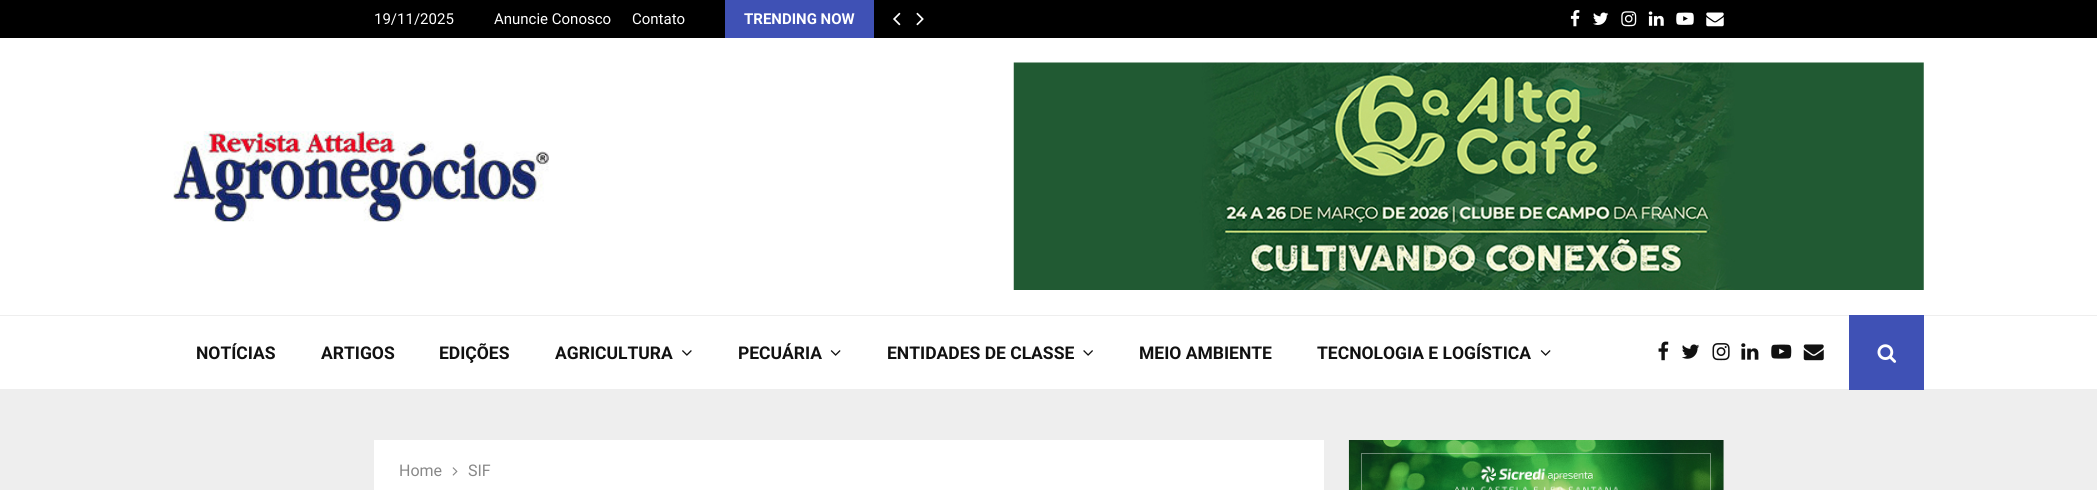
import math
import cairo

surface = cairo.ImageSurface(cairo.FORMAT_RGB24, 2097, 490)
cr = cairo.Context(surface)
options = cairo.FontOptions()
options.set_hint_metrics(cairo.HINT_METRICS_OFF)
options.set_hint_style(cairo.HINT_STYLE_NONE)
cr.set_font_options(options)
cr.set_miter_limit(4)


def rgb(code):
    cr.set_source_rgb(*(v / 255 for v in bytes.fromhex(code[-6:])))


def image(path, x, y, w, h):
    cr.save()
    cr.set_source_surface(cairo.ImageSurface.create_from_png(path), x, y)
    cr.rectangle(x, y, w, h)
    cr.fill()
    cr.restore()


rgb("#eeeeee")
cr.paint()
rgb("#000000")
cr.rectangle(0, 0, 2097, 38)
cr.fill()
rgb("#3f51b5")
cr.rectangle(725, 0, 149, 38)
cr.fill()
image("img/1.png", 893, 12, 8, 14)
image("img/2.png", 916, 12, 8, 14)
image("img/3.png", 1570, 10, 10, 17)
image("img/4.png", 1593, 12, 16, 13)
image("img/5.png", 1621, 11, 16, 16)
image("img/6.png", 1648, 11, 16, 15)
image("img/7.png", 1676, 12, 18, 13)
image("img/8.png", 1706, 12, 18, 15)
rgb("#ffffff")
cr.rectangle(0, 38, 2097, 277)
cr.fill()
image("img/9.png", 173, 131, 376, 91)
image("img/10.png", 1013, 62, 911, 228)
cr.rectangle(0, 316, 2097, 73)
cr.fill()
image("img/11.png", 682, 350, 10, 6)
image("img/12.png", 830, 350, 11, 6)
image("img/13.png", 1083, 350, 10, 6)
image("img/12.png", 1540, 350, 11, 6)
image("img/14.png", 1658, 341, 11, 20)
image("img/15.png", 1682, 344, 18, 15)
image("img/16.png", 1712, 343, 18, 18)
image("img/17.png", 1741, 343, 18, 17)
image("img/18.png", 1771, 344, 21, 15)
image("img/19.png", 1803, 344, 21, 17)
rgb("#3f51b5")
cr.rectangle(1849, 315, 75, 75)
cr.fill()
image("img/20.png", 1877, 344, 20, 19)
rgb("#ffffff")
cr.rectangle(374, 440, 950, 50)
cr.fill()
image("img/21.png", 452, 467, 6, 9)
gradient = cairo.LinearGradient(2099, 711, 974, 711)
gradient.add_color_stop_rgba(0, 0.961, 0.961, 0.961, 1)
gradient.add_color_stop_rgba(0.15, 0.937, 0.937, 0.937, 1)
gradient.add_color_stop_rgba(0.4, 0.961, 0.961, 0.961, 1)
gradient.add_color_stop_rgba(1, 0.961, 0.961, 0.961, 1)
cr.set_source(gradient)
cr.rectangle(1723, 440, 1, 50)
cr.fill()
image("img/22.png", 1348, 440, 376, 50)
cr.rectangle(1361.5, 453.5, 349, 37)
cr.set_source_rgba(1, 1, 1, 0.4)
cr.set_line_width(1)
cr.stroke()
cr.select_font_face("Roboto")
cr.set_font_size(15)
rgb("#ffffff")
for x, y, s in [
    (374, 24, "19/11/2025"),
    (494, 24, "Anuncie Conosco"),
    (632, 24, "Contato"),
]:
    cr.move_to(x, y)
    cr.show_text(s)
cr.select_font_face("Roboto", cairo.FONT_SLANT_NORMAL, cairo.FONT_WEIGHT_BOLD)
cr.move_to(744, 24)
cr.show_text("TRENDING NOW")
cr.set_font_size(17.5)
rgb("#111111")
for x, y, s in [
    (196, 359, "NOTÍCIAS"),
    (321, 359, "ARTIGOS"),
    (439, 359, "EDIÇÕES"),
    (555, 359, "AGRICULTURA"),
    (738, 359, "PECUÁRIA"),
    (887, 359, "ENTIDADES DE CLASSE"),
    (1139, 359, "MEIO AMBIENTE"),
    (1317, 359, "TECNOLOGIA E LOGÍSTICA"),
]:
    cr.move_to(x, y)
    cr.show_text(s)
cr.select_font_face("Roboto")
cr.set_font_size(16)
rgb("#888888")
cr.move_to(399, 476)
cr.show_text("Home")
cr.move_to(468, 476)
cr.show_text("SIF")
surface.write_to_png("page.png")
